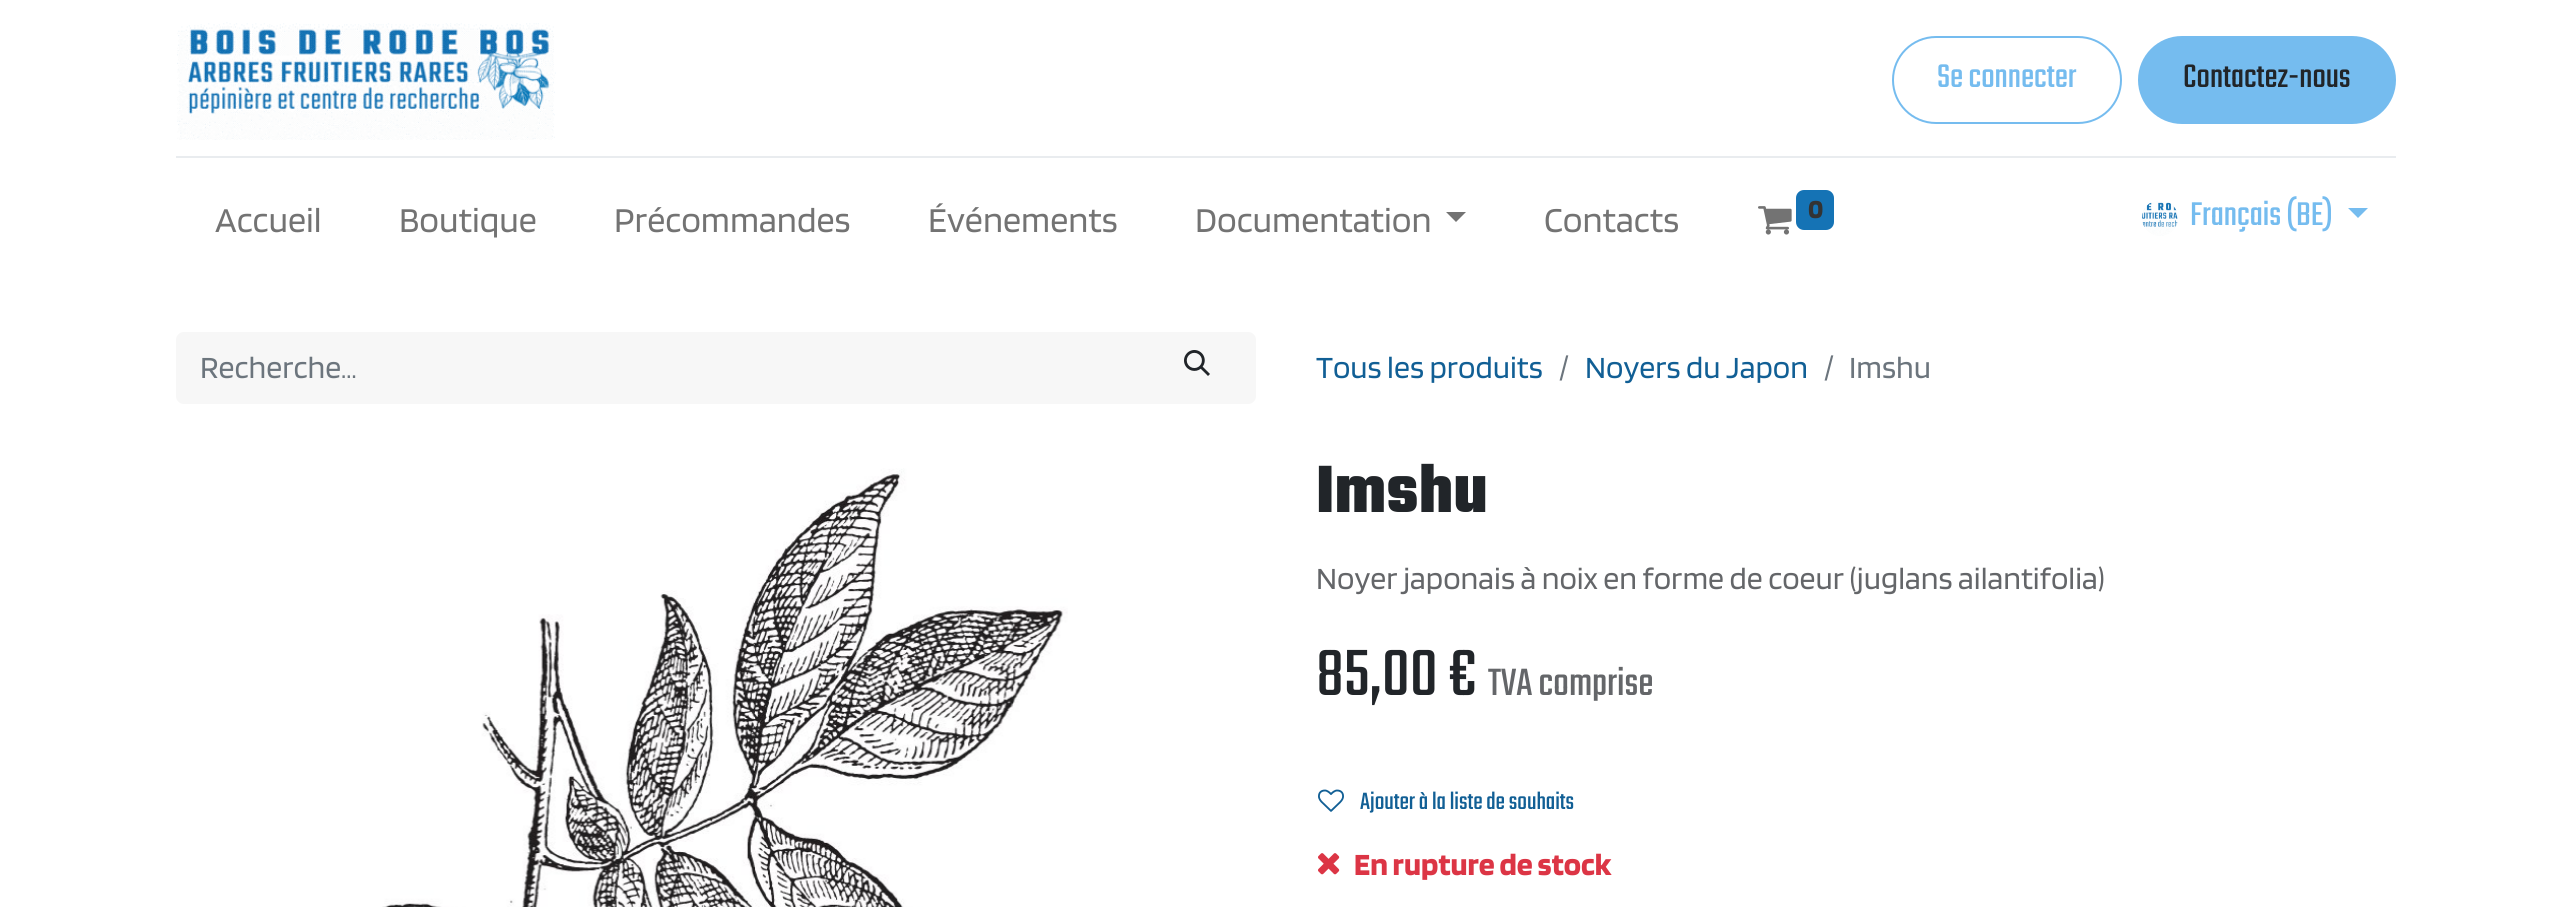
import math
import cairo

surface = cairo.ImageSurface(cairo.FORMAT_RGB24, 2572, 907)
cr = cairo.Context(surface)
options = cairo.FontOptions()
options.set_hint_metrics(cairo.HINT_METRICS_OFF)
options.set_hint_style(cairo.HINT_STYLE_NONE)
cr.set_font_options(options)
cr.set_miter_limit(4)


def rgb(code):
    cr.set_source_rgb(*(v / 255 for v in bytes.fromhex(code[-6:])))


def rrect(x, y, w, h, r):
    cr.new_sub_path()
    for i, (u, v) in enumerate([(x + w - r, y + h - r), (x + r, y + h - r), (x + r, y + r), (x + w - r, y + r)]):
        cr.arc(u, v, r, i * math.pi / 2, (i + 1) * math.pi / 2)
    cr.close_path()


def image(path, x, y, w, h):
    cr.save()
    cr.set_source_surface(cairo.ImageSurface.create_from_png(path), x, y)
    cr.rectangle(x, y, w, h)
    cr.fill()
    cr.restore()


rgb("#ffffff")
cr.paint()
image("img/1.png", 177, 22, 379, 118)
rrect(1893, 37, 228, 86, 43)
rgb("#75bcef")
cr.stroke()
rrect(2139, 37, 256, 86, 43)
cr.fill_preserve()
cr.stroke()
rgb("#e9ecef")
cr.rectangle(176, 156, 2220, 2)
cr.fill()
rgb("#737373")
cr.new_path()
cr.move_to(1446, 212)
cr.line_to(1466, 212)
cr.line_to(1456, 222)
cr.close_path()
cr.fill()
image("img/2.png", 1758, 206, 34, 29)
rgb("#1573b5")
rrect(1796, 190, 38, 40, 8)
cr.fill()
image("img/3.png", 2142, 201, 36, 35)
rgb("#75bcef")
cr.new_path()
cr.move_to(2348, 208)
cr.line_to(2368, 208)
cr.line_to(2358, 218)
cr.close_path()
cr.fill()
rgb("#f7f7f7")
cr.new_path()
cr.move_to(184, 332)
cr.line_to(1142, 332)
cr.line_to(1142, 404)
cr.line_to(184, 404)
cr.curve_to(179.5, 404, 176, 400.5, 176, 396)
cr.line_to(176, 340)
cr.curve_to(176, 335.5, 179.5, 332, 184, 332)
cr.close_path()
cr.fill()
cr.new_path()
cr.move_to(1140, 332)
cr.line_to(1248, 332)
cr.curve_to(1252.5, 332, 1256, 335.5, 1256, 340)
cr.line_to(1256, 396)
cr.curve_to(1256, 400.5, 1252.5, 404, 1248, 404)
cr.line_to(1140, 404)
cr.close_path()
cr.fill()
image("img/4.png", 1184, 350, 26, 26)
image("img/5.png", 382, 468, 686, 439)
image("img/6.png", 1318, 789, 26, 23)
image("img/7.png", 1318, 853, 22, 22)
cr.select_font_face("Teko")
cr.set_font_size(36.25)
rgb("#75bcef")
cr.move_to(1937, 87)
cr.show_text("Se connecter")
cr.set_font_size(36)
rgb("#212529")
cr.move_to(2183, 87)
cr.show_text("Contactez-nous")
cr.select_font_face("Blinker")
cr.set_font_size(36.25)
rgb("#737373")
for x, y, s in [
    (215, 232, "Accueil"),
    (399, 232, "Boutique"),
    (614, 232, "Précommandes"),
    (928, 232, "Événements"),
    (1195, 232, "Documentation"),
    (1544, 232, "Contacts"),
]:
    cr.move_to(x, y)
    cr.show_text(s)
cr.select_font_face("Blinker", cairo.FONT_SLANT_NORMAL, cairo.FONT_WEIGHT_BOLD)
cr.set_font_size(27)
rgb("#333333")
cr.move_to(1808, 218)
cr.show_text("0")
cr.select_font_face("Teko")
cr.set_font_size(36.25)
rgb("#75bcef")
cr.move_to(2190, 225)
cr.show_text("Français (BE)")
cr.select_font_face("Blinker")
cr.set_font_size(32)
rgb("#6c757d")
cr.move_to(200, 378)
cr.show_text("Recherche…")
rgb("#115f95")
cr.move_to(1316, 378)
cr.show_text("Tous les produits")
rgb("#6c757d")
cr.move_to(1559, 378)
cr.show_text("/")
rgb("#115f95")
cr.move_to(1585, 378)
cr.show_text("Noyers du Japon")
rgb("#6c757d")
cr.move_to(1824, 378)
cr.show_text("/")
cr.move_to(1849, 378)
cr.show_text("Imshu")
cr.select_font_face("Teko", cairo.FONT_SLANT_NORMAL, cairo.FONT_WEIGHT_BOLD)
cr.set_font_size(72)
rgb("#212529")
cr.move_to(1316, 512)
cr.show_text("Imshu")
cr.select_font_face("Blinker")
cr.set_font_size(32)
rgb("#646669")
cr.move_to(1316, 589)
cr.show_text("Noyer japonais à noix en forme de coeur (juglans ailantifolia)")
cr.select_font_face("Teko")
cr.set_font_size(72)
rgb("#212529")
cr.move_to(1316, 695)
cr.show_text("85,00 €")
cr.set_font_size(42)
rgb("#646669")
cr.move_to(1488, 695)
cr.show_text("TVA comprise")
cr.set_font_size(26)
rgb("#115f95")
cr.move_to(1360, 809)
cr.show_text("Ajouter à la liste de souhaits")
cr.select_font_face("Blinker", cairo.FONT_SLANT_NORMAL, cairo.FONT_WEIGHT_BOLD)
cr.set_font_size(32)
rgb("#dc3545")
cr.move_to(1354, 875)
cr.show_text("En rupture de stock")
surface.write_to_png("page.png")
